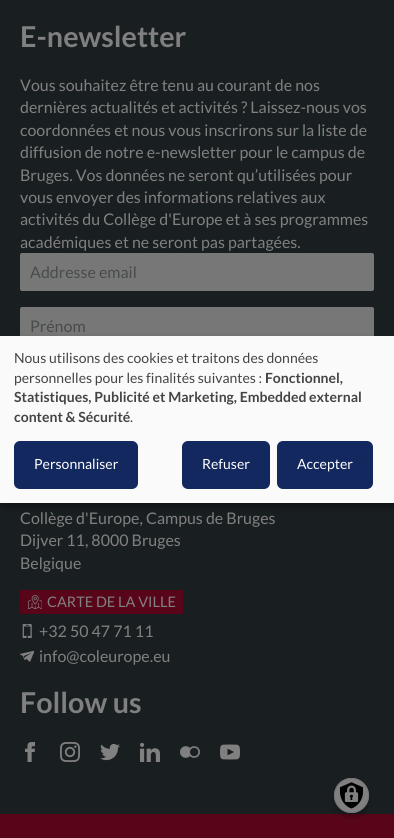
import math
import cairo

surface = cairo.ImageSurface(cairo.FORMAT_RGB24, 394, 838)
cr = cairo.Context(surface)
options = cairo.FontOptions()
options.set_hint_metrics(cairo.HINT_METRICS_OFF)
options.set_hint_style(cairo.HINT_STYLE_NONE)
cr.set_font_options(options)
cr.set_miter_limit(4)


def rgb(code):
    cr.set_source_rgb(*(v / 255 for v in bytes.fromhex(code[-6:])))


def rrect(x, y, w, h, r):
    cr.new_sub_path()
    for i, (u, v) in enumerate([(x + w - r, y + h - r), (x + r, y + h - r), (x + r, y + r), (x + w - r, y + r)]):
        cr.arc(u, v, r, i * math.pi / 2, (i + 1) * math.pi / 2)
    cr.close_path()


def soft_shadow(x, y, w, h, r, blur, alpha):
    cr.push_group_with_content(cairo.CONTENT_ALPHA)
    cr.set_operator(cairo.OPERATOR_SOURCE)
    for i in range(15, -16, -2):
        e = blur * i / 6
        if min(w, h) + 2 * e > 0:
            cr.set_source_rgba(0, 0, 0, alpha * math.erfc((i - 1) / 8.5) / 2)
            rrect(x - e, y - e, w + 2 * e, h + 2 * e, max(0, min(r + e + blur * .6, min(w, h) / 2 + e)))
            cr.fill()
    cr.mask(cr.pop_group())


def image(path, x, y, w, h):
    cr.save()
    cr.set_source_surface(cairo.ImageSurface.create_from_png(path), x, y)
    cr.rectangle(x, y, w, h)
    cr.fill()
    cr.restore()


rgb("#191e21")
cr.paint()
rgb("#777777")
rrect(20, 253, 354, 38, 2)
cr.fill()
rrect(20, 307, 354, 39, 2)
cr.fill()
rgb("#590519")
cr.rectangle(20, 590, 163, 24)
cr.fill()
image("img/1.png", 28, 595, 14, 14)
image("img/2.png", 22, 624, 10, 14)
image("img/3.png", 20, 650, 14, 12)
image("img/4.png", 25, 742, 10, 20)
image("img/5.png", 60, 742, 20, 20)
image("img/6.png", 100, 743, 20, 18)
image("img/7.png", 140, 742, 20, 20)
image("img/8.png", 180, 746, 20, 12)
image("img/9.png", 220, 744, 20, 16)
cr.rectangle(0, 814, 394, 24)
cr.fill()
rgb("#000000")
soft_shadow(5, 341, 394, 167, 0, 5, 0.19)
soft_shadow(0, 340, 394, 167, 0, 3, 0.2)
rgb("#fafafa")
cr.rectangle(0, 336, 394, 167)
cr.fill()
rgb("#12285f")
rrect(15.5, 442.5, 121, 45, 4.5)
cr.fill_preserve()
cr.set_line_width(3)
cr.stroke()
rrect(183.5, 442.5, 85, 45, 4.5)
cr.fill_preserve()
cr.stroke()
rrect(278.5, 442.5, 93, 45, 4.5)
cr.fill_preserve()
cr.stroke()
rgb("#000000")
soft_shadow(334, 783, 35, 35, 17.5, 2.5, 0.2)
rgb("#808080")
cr.arc(351.5, 795.5, 17.5, 0, 2 * math.pi)
cr.fill()
image("img/10.png", 339, 782, 25, 27)
cr.arc(351.5, 795.5, 17, 0, 2 * math.pi)
rgb("#757575")
cr.set_line_width(1)
cr.stroke()
cr.select_font_face("Lato", cairo.FONT_SLANT_NORMAL, cairo.FONT_WEIGHT_BOLD)
cr.set_font_size(28.75)
rgb("#808080")
cr.move_to(20, 47)
cr.show_text("E-newsletter")
cr.select_font_face("Lato")
cr.set_font_size(16)
for x, y, s in [
    (20, 91, "Vous souhaitez être tenu au courant de nos"),
    (20, 113, "dernières actualités et activités ? Laissez-nous vos"),
    (20, 136, "coordonnées et nous vous inscrirons sur la liste de"),
    (20, 158, "diffusion de notre e-newsletter pour le campus de"),
    (20, 181, "Bruges. Vos données ne seront qu’utilisées pour"),
    (20, 203, "vous envoyer des informations relatives aux"),
    (20, 225, "activités du Collège d'Europe et à ses programmes"),
    (20, 248, "académiques et ne seront pas partagées."),
]:
    cr.move_to(x, y)
    cr.show_text(s)
rgb("#484b4c")
cr.move_to(30, 278)
cr.show_text("Addresse email")
cr.move_to(30, 332)
cr.show_text("Prénom")
rgb("#808080")
for x, y, s in [
    (20, 524, "Collège d'Europe, Campus de Bruges"),
    (20, 546, "Dijver 11, 8000 Bruges"),
    (20, 569, "Belgique"),
]:
    cr.move_to(x, y)
    cr.show_text(s)
cr.set_font_size(14.5)
cr.move_to(47, 607)
cr.show_text("CARTE DE LA VILLE")
cr.set_font_size(16)
cr.move_to(39, 637)
cr.show_text("+32 50 47 71 11")
cr.move_to(39, 662)
cr.show_text("info@coleurope.eu")
cr.select_font_face("Lato", cairo.FONT_SLANT_NORMAL, cairo.FONT_WEIGHT_BOLD)
cr.set_font_size(28.75)
cr.move_to(20, 713)
cr.show_text("Follow us")
cr.select_font_face("Lato")
cr.set_font_size(14)
rgb("#444444")
cr.move_to(14, 363)
cr.show_text("Nous utilisons des cookies et traitons des données")
cr.move_to(14, 383)
cr.show_text("personnelles pour les finalités suivantes :")
cr.select_font_face("Lato", cairo.FONT_SLANT_NORMAL, cairo.FONT_WEIGHT_BOLD)
for x, y, s in [
    (265, 383, "Fonctionnel,"),
    (14, 402, "Statistiques, Publicité et Marketing, Embedded external"),
    (14, 422, "content & Sécurité"),
]:
    cr.move_to(x, y)
    cr.show_text(s)
cr.select_font_face("Lato")
cr.move_to(130, 422)
cr.show_text(".")
rgb("#ffffff")
for x, y, s in [
    (34, 469, "Personnaliser"),
    (202, 469, "Refuser"),
    (297, 469, "Accepter"),
]:
    cr.move_to(x, y)
    cr.show_text(s)
surface.write_to_png("page.png")
